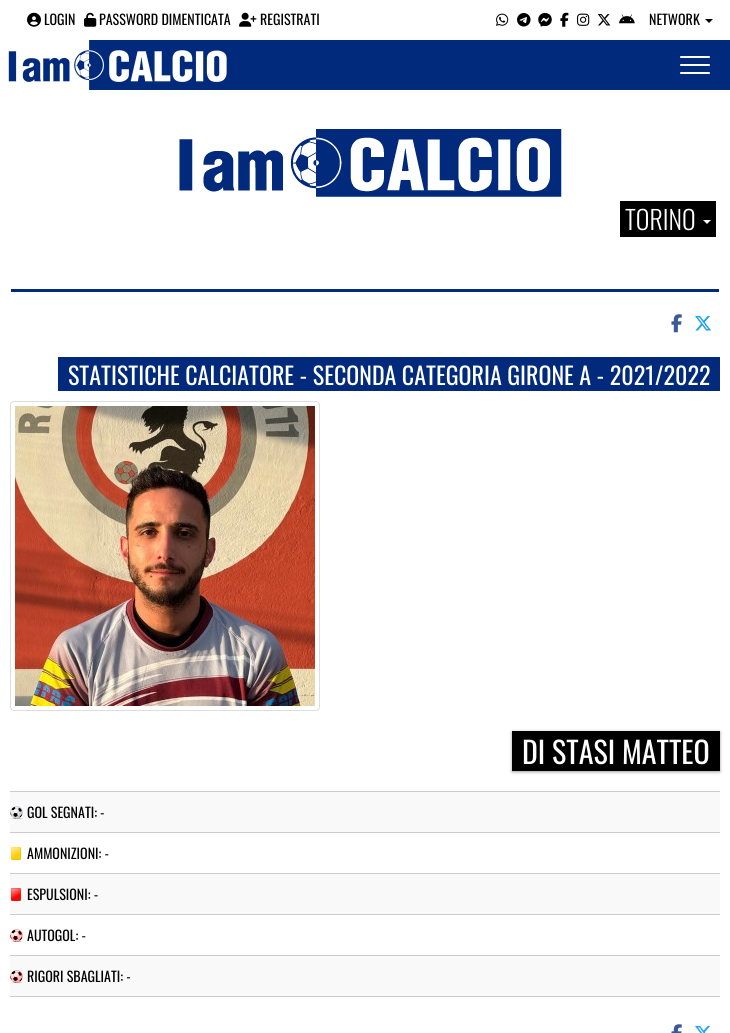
import math
import cairo

surface = cairo.ImageSurface(cairo.FORMAT_RGB24, 730, 1033)
cr = cairo.Context(surface)
options = cairo.FontOptions()
options.set_hint_metrics(cairo.HINT_METRICS_OFF)
options.set_hint_style(cairo.HINT_STYLE_NONE)
cr.set_font_options(options)
cr.set_miter_limit(4)


def rgb(code):
    cr.set_source_rgb(*(v / 255 for v in bytes.fromhex(code[-6:])))


def rrect(x, y, w, h, r):
    cr.new_sub_path()
    for i, (u, v) in enumerate([(x + w - r, y + h - r), (x + r, y + h - r), (x + r, y + r), (x + w - r, y + r)]):
        cr.arc(u, v, r, i * math.pi / 2, (i + 1) * math.pi / 2)
    cr.close_path()


def soft_shadow(x, y, w, h, r, blur, alpha):
    cr.push_group_with_content(cairo.CONTENT_ALPHA)
    cr.set_operator(cairo.OPERATOR_SOURCE)
    for i in range(15, -16, -2):
        e = blur * i / 6
        if min(w, h) + 2 * e > 0:
            cr.set_source_rgba(0, 0, 0, alpha * math.erfc((i - 1) / 8.5) / 2)
            rrect(x - e, y - e, w + 2 * e, h + 2 * e, max(0, min(r + e + blur * .6, min(w, h) / 2 + e)))
            cr.fill()
    cr.mask(cr.pop_group())


def image(path, x, y, w, h):
    cr.save()
    cr.set_source_surface(cairo.ImageSurface.create_from_png(path), x, y)
    cr.rectangle(x, y, w, h)
    cr.fill()
    cr.restore()


rgb("#ffffff")
cr.paint()
image("img/1.png", 27, 12, 14, 15)
image("img/2.png", 84, 12, 13, 15)
image("img/3.png", 239, 12, 18, 15)
image("img/4.png", 496, 13, 13, 13)
image("img/5.png", 517, 13, 14, 14)
image("img/6.png", 538, 13, 14, 14)
image("img/7.png", 560, 12, 9, 15)
image("img/8.png", 577, 13, 13, 13)
image("img/9.png", 597, 14, 14, 12)
image("img/10.png", 619, 14, 16, 10)
rgb("#000000")
cr.new_path()
cr.move_to(705, 19)
cr.line_to(713, 19)
cr.line_to(709, 23)
cr.close_path()
cr.fill()
rgb("#012a7c")
cr.rectangle(8, 40, 722, 50)
cr.fill()
image("img/11.png", 0, 40, 227, 50)
rgb("#ffffff")
rrect(680, 56, 30, 2, 1)
cr.fill()
rrect(680, 64, 30, 2, 1)
cr.fill()
rrect(680, 72, 30, 2, 1)
cr.fill()
image("img/12.png", 179, 129, 383, 68)
rgb("#000000")
cr.rectangle(620, 201, 96, 36)
cr.fill()
rgb("#ffffff")
cr.new_path()
cr.move_to(703, 220)
cr.line_to(711, 220)
cr.line_to(707, 224)
cr.close_path()
cr.fill()
rgb("#012a7c")
cr.rectangle(11, 289, 708, 3)
cr.fill()
image("img/13.png", 671, 314, 11, 19)
image("img/14.png", 695, 315, 16, 16)
cr.rectangle(58, 357, 662, 34)
cr.fill()
rrect(10.5, 401.5, 309, 309, 3.5)
rgb("#dddddd")
cr.set_line_width(1)
cr.stroke()
image("img/15.png", 15, 406, 300, 300)
rgb("#3f3f3f")
soft_shadow(512, 732, 208, 40, 0, 1.5, 0.5)
rgb("#000000")
cr.rectangle(512, 731, 208, 40)
cr.fill()
rgb("#f9f9f9")
cr.rectangle(10, 792, 710, 40)
cr.fill()
image("img/16.png", 10, 806, 13, 13)
rgb("#cccccc")
cr.rectangle(10, 791, 710, 1)
cr.fill()
cr.rectangle(10, 832, 710, 1)
cr.fill()
image("img/17.png", 11, 847, 10, 13)
cr.rectangle(10, 873, 710, 1)
cr.fill()
rgb("#f9f9f9")
cr.rectangle(10, 874, 710, 40)
cr.fill()
image("img/18.png", 11, 888, 10, 13)
rgb("#cccccc")
cr.rectangle(10, 914, 710, 1)
cr.fill()
image("img/19.png", 10, 929, 13, 13)
cr.rectangle(10, 955, 710, 1)
cr.fill()
rgb("#f9f9f9")
cr.rectangle(10, 956, 710, 40)
cr.fill()
image("img/20.png", 10, 970, 13, 13)
rgb("#cccccc")
cr.rectangle(10, 996, 710, 1)
cr.fill()
image("img/21.png", 671, 1024, 11, 9)
image("img/22.png", 695, 1025, 15, 8)
cr.select_font_face("Oswald")
cr.set_font_size(14)
rgb("#000000")
for x, y, s in [
    (44, 25, "LOGIN"),
    (99, 25, "PASSWORD DIMENTICATA"),
    (260, 25, "REGISTRATI"),
    (649, 25, "NETWORK"),
]:
    cr.move_to(x, y)
    cr.show_text(s)
cr.select_font_face("Oswald Light")
cr.set_font_size(26)
rgb("#ffffff")
cr.move_to(625, 230)
cr.show_text("TORINO")
cr.select_font_face("Oswald")
cr.set_font_size(24)
cr.move_to(68, 385)
cr.show_text("STATISTICHE CALCIATORE - SECONDA CATEGORIA GIRONE A - 2021/2022")
cr.set_font_size(30)
cr.move_to(522, 764)
cr.show_text("DI STASI MATTEO")
cr.set_font_size(14)
rgb("#000000")
for x, y, s in [
    (27, 818, "GOL SEGNATI: -"),
    (27, 859, "AMMONIZIONI: -"),
    (27, 900, "ESPULSIONI: -"),
    (27, 941, "AUTOGOL: -"),
    (27, 982, "RIGORI SBAGLIATI: -"),
]:
    cr.move_to(x, y)
    cr.show_text(s)
surface.write_to_png("page.png")
